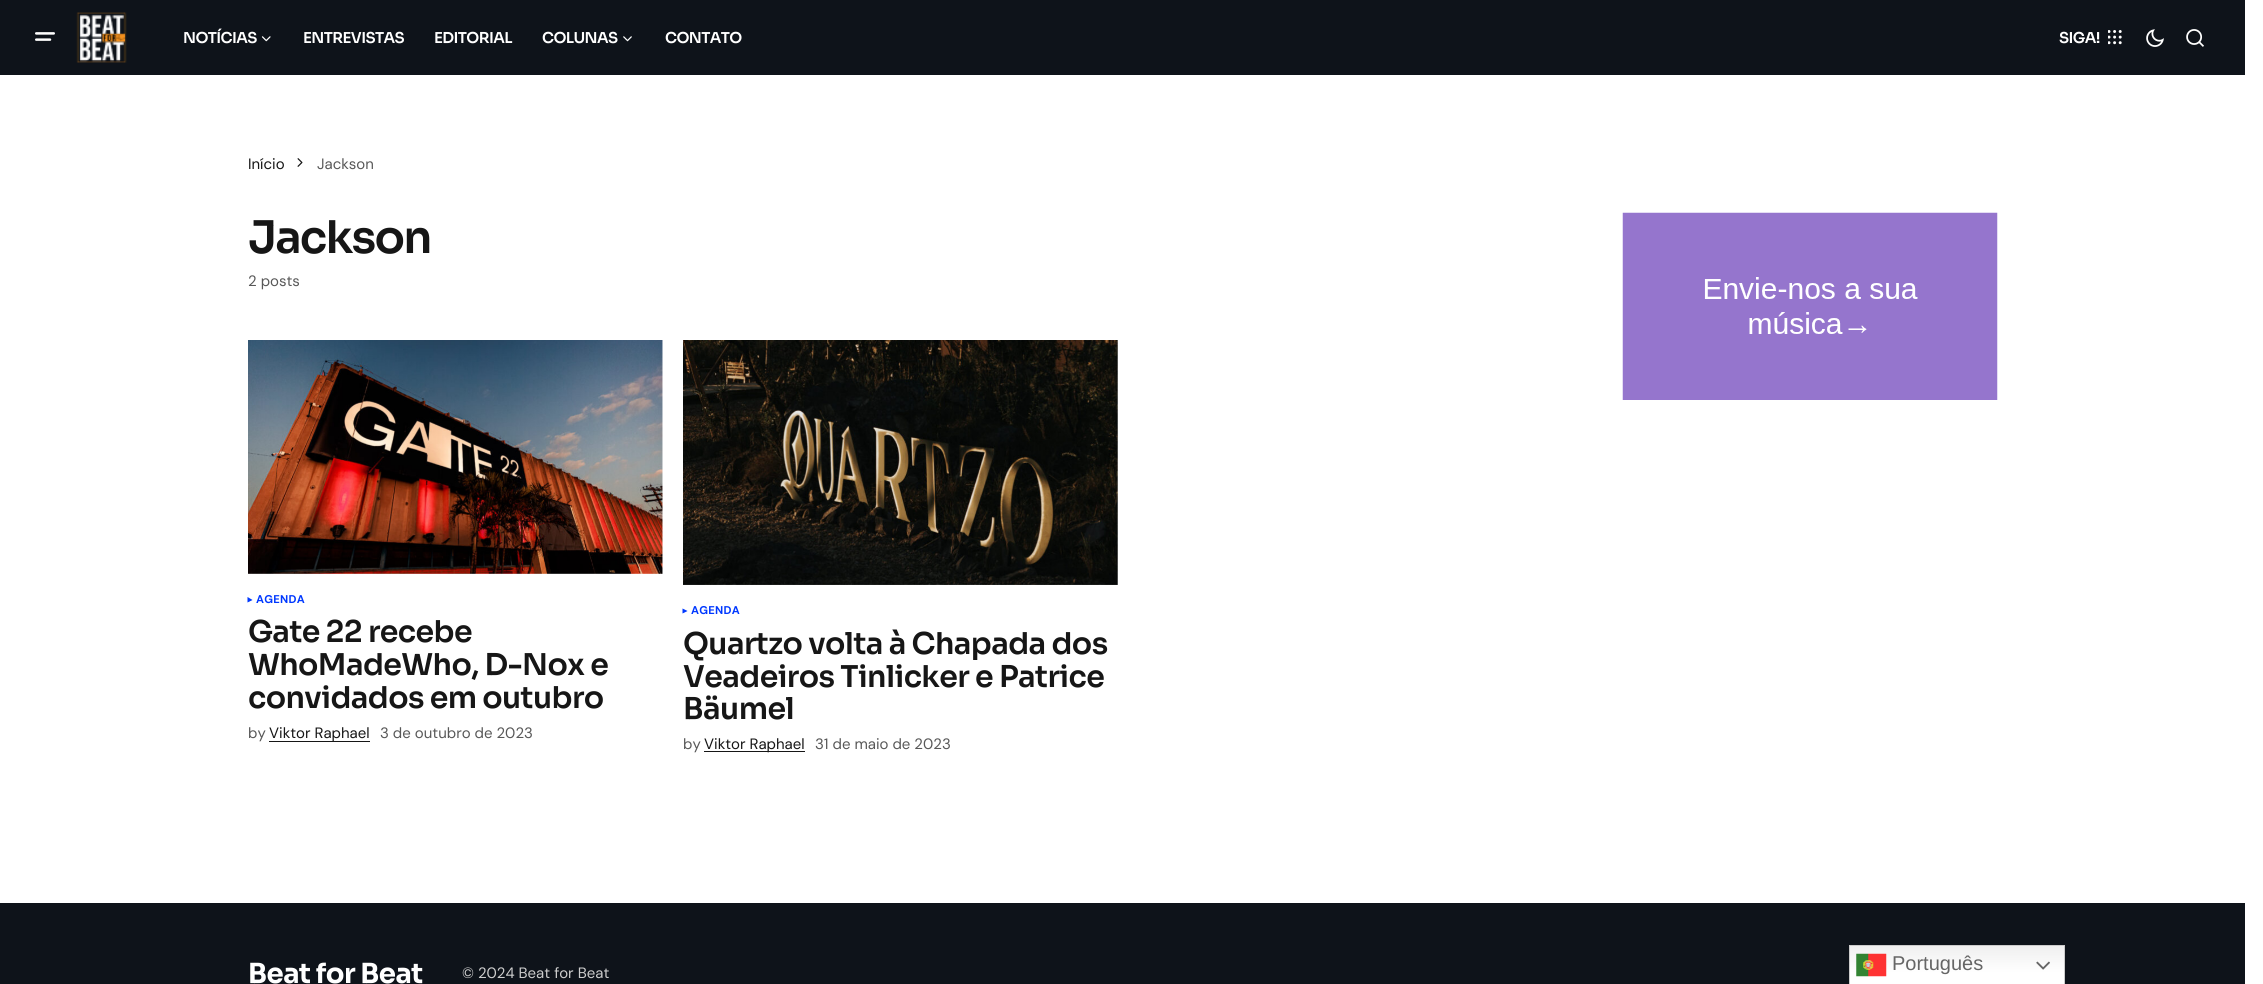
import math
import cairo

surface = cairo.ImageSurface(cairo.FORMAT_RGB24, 2263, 984)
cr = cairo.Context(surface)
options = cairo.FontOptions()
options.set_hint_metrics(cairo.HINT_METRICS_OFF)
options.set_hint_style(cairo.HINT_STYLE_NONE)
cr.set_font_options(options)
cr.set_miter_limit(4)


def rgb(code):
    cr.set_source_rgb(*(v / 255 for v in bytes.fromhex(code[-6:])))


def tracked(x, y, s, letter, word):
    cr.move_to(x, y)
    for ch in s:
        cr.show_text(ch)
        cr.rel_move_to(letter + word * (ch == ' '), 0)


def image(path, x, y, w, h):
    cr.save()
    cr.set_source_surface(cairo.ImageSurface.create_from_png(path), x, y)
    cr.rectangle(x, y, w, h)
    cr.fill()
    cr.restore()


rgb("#ffffff")
cr.paint()
rgb("#0e131a")
cr.rectangle(0, 0, 2245, 75)
cr.fill()
image("img/1.png", 35, 32, 20, 9)
image("img/2.png", 76, 12, 51, 51)
image("img/3.png", 261, 36, 10, 6)
image("img/4.png", 623, 36, 9, 6)
image("img/5.png", 2108, 30, 14, 15)
image("img/6.png", 2146, 29, 18, 18)
image("img/7.png", 2186, 29, 18, 18)
image("img/8.png", 297, 158, 6, 9)
image("img/9.png", 248, 340, 415, 234)
rgb("#0038ff")
cr.new_path()
cr.move_to(252.5, 600)
cr.line_to(247.5, 602.5)
cr.line_to(247.5, 597)
cr.close_path()
cr.fill()
rgb("#161616")
cr.rectangle(269, 741, 101, 1)
cr.fill()
image("img/10.png", 683, 340, 435, 245)
rgb("#0038ff")
cr.new_path()
cr.move_to(687.5, 611)
cr.line_to(682.5, 613.5)
cr.line_to(682.5, 608.5)
cr.close_path()
cr.fill()
rgb("#161616")
cr.rectangle(704, 751, 101, 1)
cr.fill()
image("img/11.png", 1622, 212, 376, 188)
rgb("#0e131a")
cr.rectangle(0, 903, 2245, 81)
cr.fill()
gradient = cairo.LinearGradient(1957, 945, 1957, 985)
gradient.add_color_stop_rgba(0, 0.937, 0.937, 0.937, 1)
gradient.add_color_stop_rgba(0.7, 1, 1, 1, 1)
cr.set_source(gradient)
cr.rectangle(1850, 946, 214, 38)
cr.fill()
cr.rectangle(1849.5, 945.5, 215, 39)
rgb("#cccccc")
cr.set_line_width(1)
cr.stroke()
image("img/12.png", 1856, 953, 31, 24)
image("img/13.png", 2036, 961, 14, 9)
cr.select_font_face("Sora SemiBold")
cr.set_font_size(15)
rgb("#ffffff")
for x, y, s in [
    (183, 43, "NOTÍCIAS"),
    (303, 43, "ENTREVISTAS"),
    (434, 43, "EDITORIAL"),
    (542, 43, "COLUNAS"),
    (665, 43, "CONTATO"),
    (2059, 43, "SIGA!"),
]:
    tracked(x, y, s, -0.6, 0)
cr.select_font_face("DM Sans")
rgb("#161616")
cr.move_to(248, 169)
cr.show_text("Início")
rgb("#585858")
cr.move_to(317, 169)
cr.show_text("Jackson")
cr.select_font_face("Sora SemiBold")
cr.set_font_size(45)
rgb("#161616")
tracked(248, 253, "Jackson", -1.75, 0)
cr.select_font_face("DM Sans")
cr.set_font_size(15)
rgb("#585858")
cr.move_to(248, 286)
cr.show_text("2 posts")
cr.select_font_face("DM Sans", cairo.FONT_SLANT_NORMAL, cairo.FONT_WEIGHT_BOLD)
cr.set_font_size(11.25)
rgb("#0038ff")
tracked(256, 603, "AGENDA", 0.25, 0)
cr.select_font_face("Sora SemiBold")
cr.set_font_size(30)
rgb("#161616")
for x, y, s in [
    (248, 642, "Gate 22 recebe"),
    (248, 675, "WhoMadeWho, D-Nox e"),
    (248, 708, "convidados em outubro"),
]:
    tracked(x, y, s, -0.6, 0)
cr.select_font_face("DM Sans")
cr.set_font_size(15)
rgb("#585858")
cr.move_to(248, 738)
cr.show_text("by")
rgb("#161616")
cr.move_to(269, 738)
cr.show_text("Viktor Raphael")
rgb("#585858")
cr.move_to(380, 738)
cr.show_text("3 de outubro de 2023")
cr.select_font_face("DM Sans", cairo.FONT_SLANT_NORMAL, cairo.FONT_WEIGHT_BOLD)
cr.set_font_size(11.25)
rgb("#0038ff")
tracked(691, 614, "AGENDA", 0.25, 0)
cr.select_font_face("Sora SemiBold")
cr.set_font_size(30)
rgb("#161616")
for x, y, s in [
    (683, 654, "Quartzo volta à Chapada dos"),
    (683, 687, "Veadeiros Tinlicker e Patrice"),
    (683, 719, "Bäumel"),
]:
    tracked(x, y, s, -0.6, 0)
cr.select_font_face("DM Sans")
cr.set_font_size(15)
rgb("#585858")
cr.move_to(683, 749)
cr.show_text("by")
rgb("#161616")
cr.move_to(704, 749)
cr.show_text("Viktor Raphael")
rgb("#585858")
cr.move_to(815, 749)
cr.show_text("31 de maio de 2023")
cr.select_font_face("Sora", cairo.FONT_SLANT_NORMAL, cairo.FONT_WEIGHT_BOLD)
cr.set_font_size(27.5)
rgb("#ffffff")
tracked(248, 983, "Beat for Beat", -0.5, 0)
cr.select_font_face("DM Sans")
cr.set_font_size(15)
rgb("#cdcdcd")
cr.move_to(462, 978)
cr.show_text("© 2024 Beat for Beat")
cr.select_font_face("Liberation Sans")
cr.set_font_size(20)
rgb("#666666")
cr.move_to(1892, 970)
cr.show_text("Português")
surface.write_to_png("page.png")
